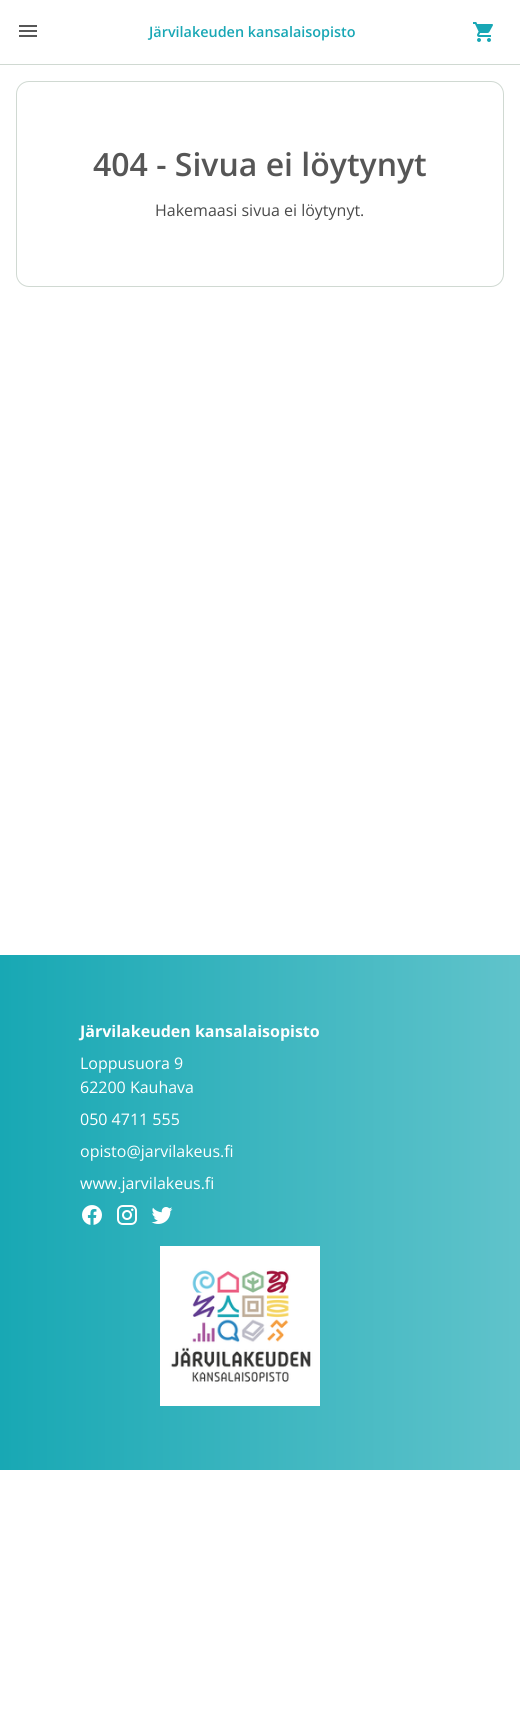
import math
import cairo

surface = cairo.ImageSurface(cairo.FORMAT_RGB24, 520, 1728)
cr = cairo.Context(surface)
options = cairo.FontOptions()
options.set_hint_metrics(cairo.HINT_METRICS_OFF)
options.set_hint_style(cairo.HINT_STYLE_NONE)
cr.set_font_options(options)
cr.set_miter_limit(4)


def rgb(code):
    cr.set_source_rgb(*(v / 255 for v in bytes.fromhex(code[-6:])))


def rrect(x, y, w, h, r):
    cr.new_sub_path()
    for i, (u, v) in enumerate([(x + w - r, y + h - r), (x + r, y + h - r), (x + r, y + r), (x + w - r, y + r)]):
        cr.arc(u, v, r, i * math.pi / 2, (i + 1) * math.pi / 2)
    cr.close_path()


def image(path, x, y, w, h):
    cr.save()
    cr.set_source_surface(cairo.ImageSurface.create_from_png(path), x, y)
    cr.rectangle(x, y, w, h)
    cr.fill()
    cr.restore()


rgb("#ffffff")
cr.paint()
rgb("#d0d9d2")
cr.rectangle(0, 64, 520, 1)
cr.fill()
image("img/1.png", 19, 25, 18, 12)
image("img/2.png", 473, 22, 20, 20)
rrect(16.5, 81.5, 487, 205, 12.5)
cr.set_line_width(1)
cr.stroke()
gradient = cairo.LinearGradient(520, 1213, 0, 1213)
gradient.add_color_stop_rgba(0, 0.376, 0.765, 0.796, 1)
gradient.add_color_stop_rgba(1, 0.094, 0.659, 0.706, 1)
cr.set_source(gradient)
cr.rectangle(0, 955, 520, 515)
cr.fill()
image("img/3.png", 82, 1205, 20, 20)
image("img/4.png", 117, 1205, 20, 20)
image("img/5.png", 151, 1207, 22, 17)
image("img/6.png", 160, 1246, 160, 160)
cr.select_font_face("Open Sans SemiBold")
cr.set_font_size(14.4)
rgb("#18a7b5")
cr.move_to(149, 37)
cr.show_text("Järvilakeuden kansalaisopisto")
cr.set_font_size(32)
rgb("#565656")
cr.move_to(93, 176)
cr.show_text("404 - Sivua ei löytynyt")
cr.select_font_face("Open Sans")
cr.set_font_size(16)
rgb("#4a4a4a")
cr.move_to(155, 216)
cr.show_text("Hakemaasi sivua ei löytynyt.")
cr.select_font_face("Open Sans", cairo.FONT_SLANT_NORMAL, cairo.FONT_WEIGHT_BOLD)
rgb("#ffffff")
cr.move_to(80, 1037)
cr.show_text("Järvilakeuden kansalaisopisto")
cr.select_font_face("Open Sans")
for x, y, s in [
    (80, 1069, "Loppusuora 9"),
    (80, 1093, "62200 Kauhava"),
    (80, 1125, "050 4711 555"),
    (80, 1157, "opisto@jarvilakeus.fi"),
    (80, 1189, "www.jarvilakeus.fi"),
]:
    cr.move_to(x, y)
    cr.show_text(s)
surface.write_to_png("page.png")
